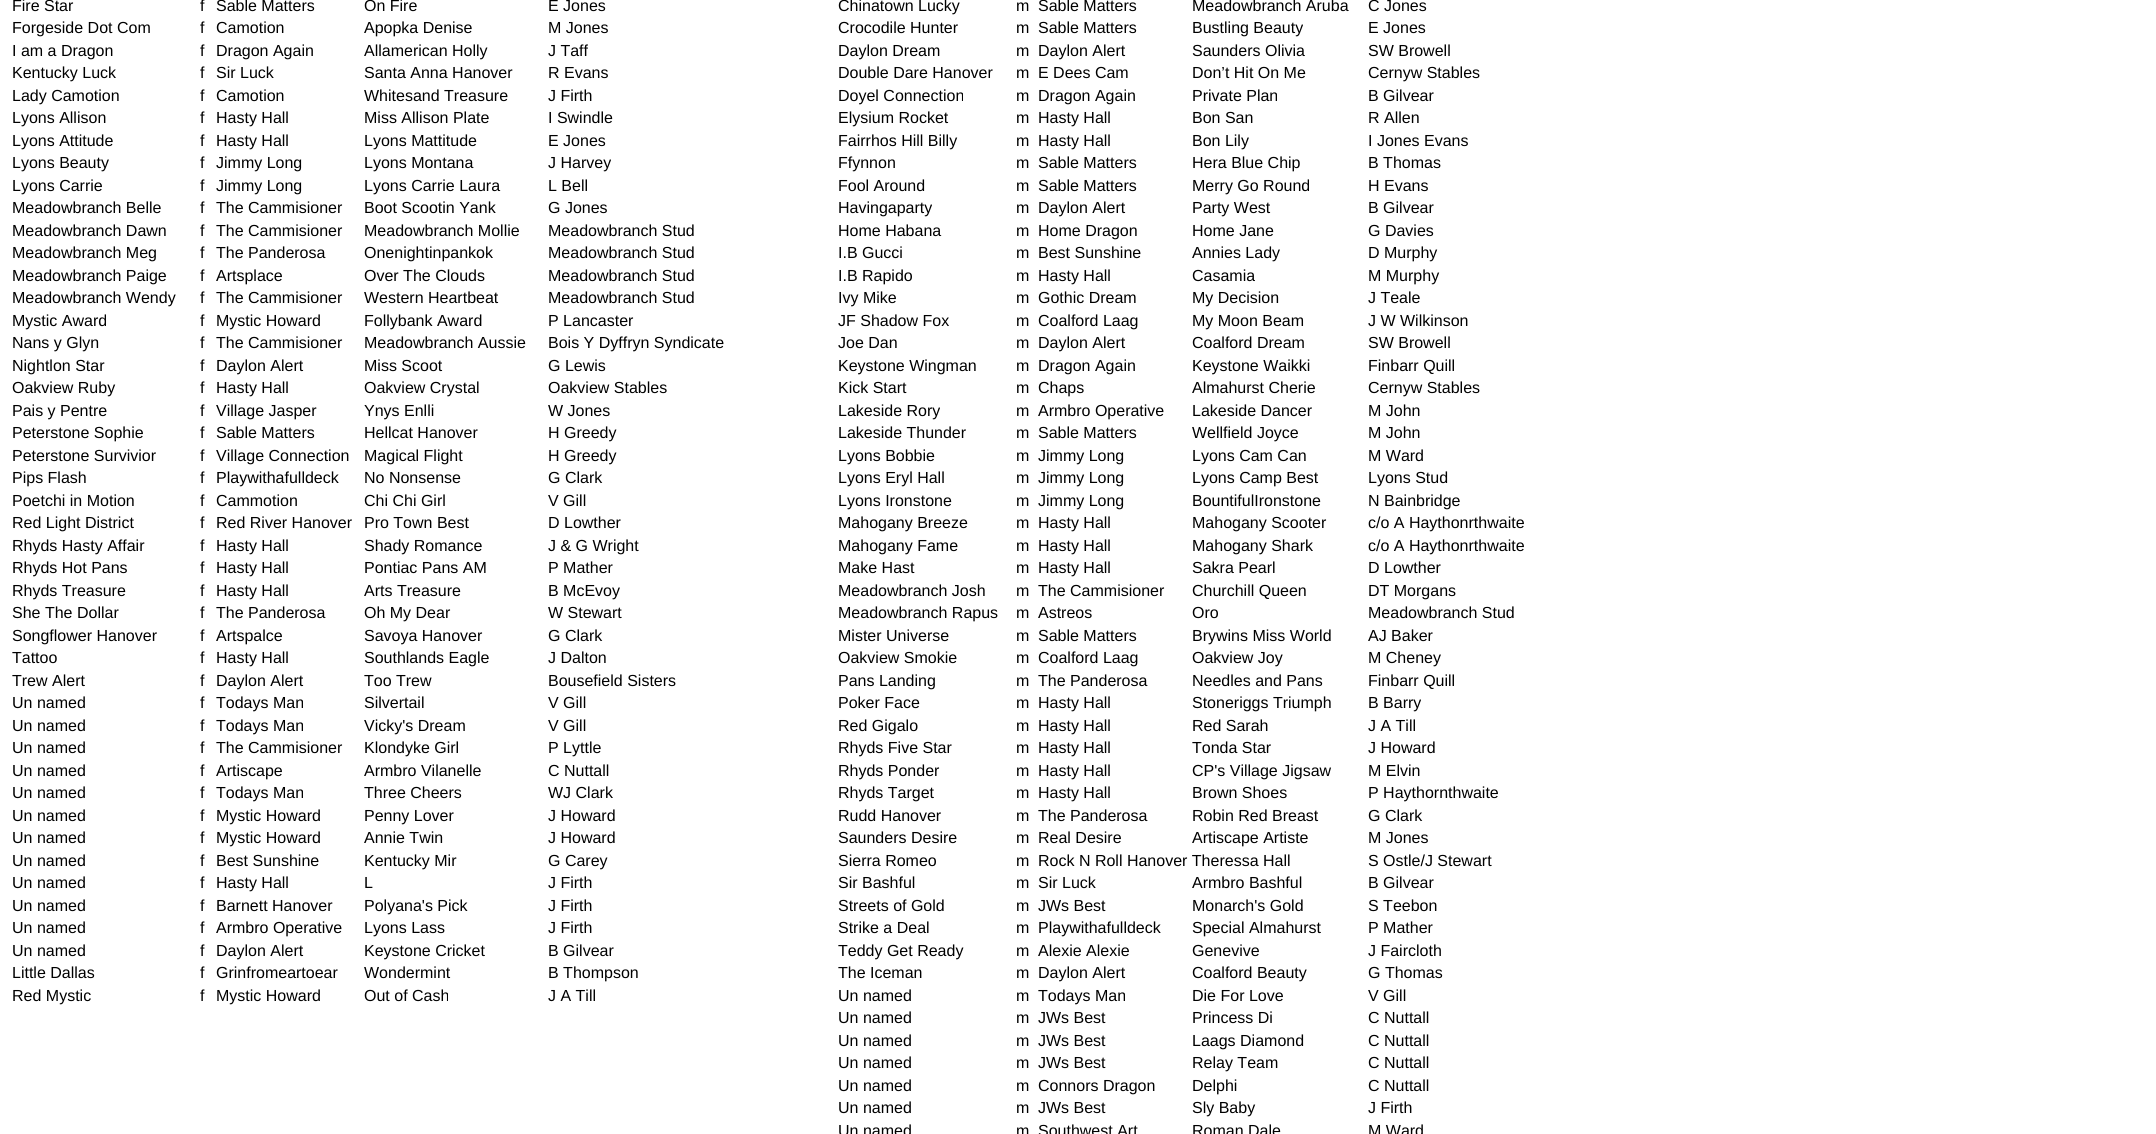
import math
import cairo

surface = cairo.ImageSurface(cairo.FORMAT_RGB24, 2156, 1134)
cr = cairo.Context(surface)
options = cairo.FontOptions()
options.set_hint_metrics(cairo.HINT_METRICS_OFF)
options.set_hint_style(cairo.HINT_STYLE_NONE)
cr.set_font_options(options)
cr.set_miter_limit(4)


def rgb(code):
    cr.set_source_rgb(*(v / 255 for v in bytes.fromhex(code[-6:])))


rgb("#ffffff")
cr.paint()
cr.select_font_face("Liberation Sans")
cr.set_font_size(16)
rgb("#000000")
for x, y, s in [
    (12, 11, "Fire Star"),
    (200, 11, "f"),
    (216, 11, "Sable Matters"),
    (364, 11, "On Fire"),
    (548, 11, "E Jones"),
    (838, 11, "Chinatown Lucky"),
    (1016, 11, "m"),
    (1038, 11, "Sable Matters"),
    (1192, 11, "Meadowbranch Aruba"),
    (1368, 11, "C Jones"),
    (12, 33, "Forgeside Dot Com"),
    (200, 33, "f"),
    (216, 33, "Camotion"),
    (364, 33, "Apopka Denise"),
    (548, 33, "M Jones"),
    (838, 33, "Crocodile Hunter"),
    (1016, 33, "m"),
    (1038, 33, "Sable Matters"),
    (1192, 33, "Bustling Beauty"),
    (1368, 33, "E Jones"),
    (12, 56, "I am a Dragon"),
    (200, 56, "f"),
    (216, 56, "Dragon Again"),
    (364, 56, "Allamerican Holly"),
    (548, 56, "J Taff"),
    (838, 56, "Daylon Dream"),
    (1016, 56, "m"),
    (1038, 56, "Daylon Alert"),
    (1192, 56, "Saunders Olivia"),
    (1368, 56, "SW Browell"),
    (12, 78, "Kentucky Luck"),
    (200, 78, "f"),
    (216, 78, "Sir Luck"),
    (364, 78, "Santa Anna Hanover"),
    (548, 78, "R Evans"),
    (838, 78, "Double Dare Hanover"),
    (1016, 78, "m"),
    (1038, 78, "E Dees Cam"),
    (1192, 78, "Don’t Hit On Me"),
    (1368, 78, "Cernyw Stables"),
    (12, 101, "Lady Camotion"),
    (200, 101, "f"),
    (216, 101, "Camotion"),
    (364, 101, "Whitesand Treasure"),
    (548, 101, "J Firth"),
    (838, 101, "Doyel Connection"),
    (1016, 101, "m"),
    (1038, 101, "Dragon Again"),
    (1192, 101, "Private Plan"),
    (1368, 101, "B Gilvear"),
    (12, 123, "Lyons Allison"),
    (200, 123, "f"),
    (216, 123, "Hasty Hall"),
    (364, 123, "Miss Allison Plate"),
    (548, 123, "I Swindle"),
    (838, 123, "Elysium Rocket"),
    (1016, 123, "m"),
    (1038, 123, "Hasty Hall"),
    (1192, 123, "Bon San"),
    (1368, 123, "R Allen"),
    (12, 146, "Lyons Attitude"),
    (200, 146, "f"),
    (216, 146, "Hasty Hall"),
    (364, 146, "Lyons Mattitude"),
    (548, 146, "E Jones"),
    (838, 146, "Fairrhos Hill Billy"),
    (1016, 146, "m"),
    (1038, 146, "Hasty Hall"),
    (1192, 146, "Bon Lily"),
    (1368, 146, "I Jones Evans"),
    (12, 168, "Lyons Beauty"),
    (200, 168, "f"),
    (216, 168, "Jimmy Long"),
    (364, 168, "Lyons Montana"),
    (548, 168, "J Harvey"),
    (838, 168, "Ffynnon"),
    (1016, 168, "m"),
    (1038, 168, "Sable Matters"),
    (1192, 168, "Hera Blue Chip"),
    (1368, 168, "B Thomas"),
    (12, 191, "Lyons Carrie"),
    (200, 191, "f"),
    (216, 191, "Jimmy Long"),
    (364, 191, "Lyons Carrie Laura"),
    (548, 191, "L Bell"),
    (838, 191, "Fool Around"),
    (1016, 191, "m"),
    (1038, 191, "Sable Matters"),
    (1192, 191, "Merry Go Round"),
    (1368, 191, "H Evans"),
    (12, 213, "Meadowbranch Belle"),
    (200, 213, "f"),
    (216, 213, "The Cammisioner"),
    (364, 213, "Boot Scootin Yank"),
    (548, 213, "G Jones"),
    (838, 213, "Havingaparty"),
    (1016, 213, "m"),
    (1038, 213, "Daylon Alert"),
    (1192, 213, "Party West"),
    (1368, 213, "B Gilvear"),
    (12, 236, "Meadowbranch Dawn"),
    (200, 236, "f"),
    (216, 236, "The Cammisioner"),
    (364, 236, "Meadowbranch Mollie"),
    (548, 236, "Meadowbranch Stud"),
    (838, 236, "Home Habana"),
    (1016, 236, "m"),
    (1038, 236, "Home Dragon"),
    (1192, 236, "Home Jane"),
    (1368, 236, "G Davies"),
    (12, 258, "Meadowbranch Meg"),
    (200, 258, "f"),
    (216, 258, "The Panderosa"),
    (364, 258, "Onenightinpankok"),
    (548, 258, "Meadowbranch Stud"),
    (838, 258, "I.B Gucci"),
    (1016, 258, "m"),
    (1038, 258, "Best Sunshine"),
    (1192, 258, "Annies Lady"),
    (1368, 258, "D Murphy"),
    (12, 281, "Meadowbranch Paige"),
    (200, 281, "f"),
    (216, 281, "Artsplace"),
    (364, 281, "Over The Clouds"),
    (548, 281, "Meadowbranch Stud"),
    (838, 281, "I.B Rapido"),
    (1016, 281, "m"),
    (1038, 281, "Hasty Hall"),
    (1192, 281, "Casamia"),
    (1368, 281, "M Murphy"),
    (12, 303, "Meadowbranch Wendy"),
    (200, 303, "f"),
    (216, 303, "The Cammisioner"),
    (364, 303, "Western Heartbeat"),
    (548, 303, "Meadowbranch Stud"),
    (838, 303, "Ivy Mike"),
    (1016, 303, "m"),
    (1038, 303, "Gothic Dream"),
    (1192, 303, "My Decision"),
    (1368, 303, "J Teale"),
    (12, 326, "Mystic Award"),
    (200, 326, "f"),
    (216, 326, "Mystic Howard"),
    (364, 326, "Follybank Award"),
    (548, 326, "P Lancaster"),
    (838, 326, "JF Shadow Fox"),
    (1016, 326, "m"),
    (1038, 326, "Coalford Laag"),
    (1192, 326, "My Moon Beam"),
    (1368, 326, "J W Wilkinson"),
    (12, 348, "Nans y Glyn"),
    (200, 348, "f"),
    (216, 348, "The Cammisioner"),
    (364, 348, "Meadowbranch Aussie"),
    (548, 348, "Bois Y Dyffryn Syndicate"),
    (838, 348, "Joe Dan"),
    (1016, 348, "m"),
    (1038, 348, "Daylon Alert"),
    (1192, 348, "Coalford Dream"),
    (1368, 348, "SW Browell"),
    (12, 371, "Nightlon Star"),
    (200, 371, "f"),
    (216, 371, "Daylon Alert"),
    (364, 371, "Miss Scoot"),
    (548, 371, "G Lewis"),
    (838, 371, "Keystone Wingman"),
    (1016, 371, "m"),
    (1038, 371, "Dragon Again"),
    (1192, 371, "Keystone Waikki"),
    (1368, 371, "Finbarr Quill"),
    (12, 393, "Oakview Ruby"),
    (200, 393, "f"),
    (216, 393, "Hasty Hall"),
    (364, 393, "Oakview Crystal"),
    (548, 393, "Oakview Stables"),
    (838, 393, "Kick Start"),
    (1016, 393, "m"),
    (1038, 393, "Chaps"),
    (1192, 393, "Almahurst Cherie"),
    (1368, 393, "Cernyw Stables"),
    (12, 416, "Pais y Pentre"),
    (200, 416, "f"),
    (216, 416, "Village Jasper"),
    (364, 416, "Ynys Enlli"),
    (548, 416, "W Jones"),
    (838, 416, "Lakeside Rory"),
    (1016, 416, "m"),
    (1038, 416, "Armbro Operative"),
    (1192, 416, "Lakeside Dancer"),
    (1368, 416, "M John"),
    (12, 438, "Peterstone Sophie"),
    (200, 438, "f"),
    (216, 438, "Sable Matters"),
    (364, 438, "Hellcat Hanover"),
    (548, 438, "H Greedy"),
    (838, 438, "Lakeside Thunder"),
    (1016, 438, "m"),
    (1038, 438, "Sable Matters"),
    (1192, 438, "Wellfield Joyce"),
    (1368, 438, "M John"),
    (12, 461, "Peterstone Survivior"),
    (200, 461, "f"),
    (216, 461, "Village Connection"),
    (364, 461, "Magical Flight"),
    (548, 461, "H Greedy"),
    (838, 461, "Lyons Bobbie"),
    (1016, 461, "m"),
    (1038, 461, "Jimmy Long"),
    (1192, 461, "Lyons Cam Can"),
    (1368, 461, "M Ward"),
    (12, 483, "Pips Flash"),
    (200, 483, "f"),
    (216, 483, "Playwithafulldeck"),
    (364, 483, "No Nonsense"),
    (548, 483, "G Clark"),
    (838, 483, "Lyons Eryl Hall"),
    (1016, 483, "m"),
    (1038, 483, "Jimmy Long"),
    (1192, 483, "Lyons Camp Best"),
    (1368, 483, "Lyons Stud"),
    (12, 506, "Poetchi in Motion"),
    (200, 506, "f"),
    (216, 506, "Cammotion"),
    (364, 506, "Chi Chi Girl"),
    (548, 506, "V Gill"),
    (838, 506, "Lyons Ironstone"),
    (1016, 506, "m"),
    (1038, 506, "Jimmy Long"),
    (1192, 506, "BountifulIronstone"),
    (1368, 506, "N Bainbridge"),
    (12, 528, "Red Light District"),
    (200, 528, "f"),
    (216, 528, "Red River Hanover"),
    (364, 528, "Pro Town Best"),
    (548, 528, "D Lowther"),
    (838, 528, "Mahogany Breeze"),
    (1016, 528, "m"),
    (1038, 528, "Hasty Hall"),
    (1192, 528, "Mahogany Scooter"),
    (1368, 528, "c/o A Haythonrthwaite"),
    (12, 551, "Rhyds Hasty Affair"),
    (200, 551, "f"),
    (216, 551, "Hasty Hall"),
    (364, 551, "Shady Romance"),
    (548, 551, "J & G Wright"),
    (838, 551, "Mahogany Fame"),
    (1016, 551, "m"),
    (1038, 551, "Hasty Hall"),
    (1192, 551, "Mahogany Shark"),
    (1368, 551, "c/o A Haythonrthwaite"),
    (12, 573, "Rhyds Hot Pans"),
    (200, 573, "f"),
    (216, 573, "Hasty Hall"),
    (364, 573, "Pontiac Pans AM"),
    (548, 573, "P Mather"),
    (838, 573, "Make Hast"),
    (1016, 573, "m"),
    (1038, 573, "Hasty Hall"),
    (1192, 573, "Sakra Pearl"),
    (1368, 573, "D Lowther"),
    (12, 596, "Rhyds Treasure"),
    (200, 596, "f"),
    (216, 596, "Hasty Hall"),
    (364, 596, "Arts Treasure"),
    (548, 596, "B McEvoy"),
    (838, 596, "Meadowbranch Josh"),
    (1016, 596, "m"),
    (1038, 596, "The Cammisioner"),
    (1192, 596, "Churchill Queen"),
    (1368, 596, "DT Morgans"),
    (12, 618, "She The Dollar"),
    (200, 618, "f"),
    (216, 618, "The Panderosa"),
    (364, 618, "Oh My Dear"),
    (548, 618, "W Stewart"),
    (838, 618, "Meadowbranch Rapus"),
    (1016, 618, "m"),
    (1038, 618, "Astreos"),
    (1192, 618, "Oro"),
    (1368, 618, "Meadowbranch Stud"),
    (12, 641, "Songflower Hanover"),
    (200, 641, "f"),
    (216, 641, "Artspalce"),
    (364, 641, "Savoya Hanover"),
    (548, 641, "G Clark"),
    (838, 641, "Mister Universe"),
    (1016, 641, "m"),
    (1038, 641, "Sable Matters"),
    (1192, 641, "Brywins Miss World"),
    (1368, 641, "AJ Baker"),
    (12, 663, "Tattoo"),
    (200, 663, "f"),
    (216, 663, "Hasty Hall"),
    (364, 663, "Southlands Eagle"),
    (548, 663, "J Dalton"),
    (838, 663, "Oakview Smokie"),
    (1016, 663, "m"),
    (1038, 663, "Coalford Laag"),
    (1192, 663, "Oakview Joy"),
    (1368, 663, "M Cheney"),
    (12, 686, "Trew Alert"),
    (200, 686, "f"),
    (216, 686, "Daylon Alert"),
    (364, 686, "Too Trew"),
    (548, 686, "Bousefield Sisters"),
    (838, 686, "Pans Landing"),
    (1016, 686, "m"),
    (1038, 686, "The Panderosa"),
    (1192, 686, "Needles and Pans"),
    (1368, 686, "Finbarr Quill"),
    (12, 708, "Un named"),
    (200, 708, "f"),
    (216, 708, "Todays Man"),
    (364, 708, "Silvertail"),
    (548, 708, "V Gill"),
    (838, 708, "Poker Face"),
    (1016, 708, "m"),
    (1038, 708, "Hasty Hall"),
    (1192, 708, "Stoneriggs Triumph"),
    (1368, 708, "B Barry"),
    (12, 731, "Un named"),
    (200, 731, "f"),
    (216, 731, "Todays Man"),
    (364, 731, "Vicky's Dream"),
    (548, 731, "V Gill"),
    (838, 731, "Red Gigalo"),
    (1016, 731, "m"),
    (1038, 731, "Hasty Hall"),
    (1192, 731, "Red Sarah"),
    (1368, 731, "J A Till"),
    (12, 753, "Un named"),
    (200, 753, "f"),
    (216, 753, "The Cammisioner"),
    (364, 753, "Klondyke Girl"),
    (548, 753, "P Lyttle"),
    (838, 753, "Rhyds Five Star"),
    (1016, 753, "m"),
    (1038, 753, "Hasty Hall"),
    (1192, 753, "Tonda Star"),
    (1368, 753, "J Howard"),
    (12, 776, "Un named"),
    (200, 776, "f"),
    (216, 776, "Artiscape"),
    (364, 776, "Armbro Vilanelle"),
    (548, 776, "C Nuttall"),
    (838, 776, "Rhyds Ponder"),
    (1016, 776, "m"),
    (1038, 776, "Hasty Hall"),
    (1192, 776, "CP's Village Jigsaw"),
    (1368, 776, "M Elvin"),
    (12, 798, "Un named"),
    (200, 798, "f"),
    (216, 798, "Todays Man"),
    (364, 798, "Three Cheers"),
    (548, 798, "WJ Clark"),
    (838, 798, "Rhyds Target"),
    (1016, 798, "m"),
    (1038, 798, "Hasty Hall"),
    (1192, 798, "Brown Shoes"),
    (1368, 798, "P Haythornthwaite"),
    (12, 821, "Un named"),
    (200, 821, "f"),
    (216, 821, "Mystic Howard"),
    (364, 821, "Penny Lover"),
    (548, 821, "J Howard"),
    (838, 821, "Rudd Hanover"),
    (1016, 821, "m"),
    (1038, 821, "The Panderosa"),
    (1192, 821, "Robin Red Breast"),
    (1368, 821, "G Clark"),
    (12, 843, "Un named"),
    (200, 843, "f"),
    (216, 843, "Mystic Howard"),
    (364, 843, "Annie Twin"),
    (548, 843, "J Howard"),
    (838, 843, "Saunders Desire"),
    (1016, 843, "m"),
    (1038, 843, "Real Desire"),
    (1192, 843, "Artiscape Artiste"),
    (1368, 843, "M Jones"),
    (12, 866, "Un named"),
    (200, 866, "f"),
    (216, 866, "Best Sunshine"),
    (364, 866, "Kentucky Mir"),
    (548, 866, "G Carey"),
    (838, 866, "Sierra Romeo"),
    (1016, 866, "m"),
    (1038, 866, "Rock N Roll Hanover Theressa Hall"),
    (1368, 866, "S Ostle/J Stewart"),
    (12, 888, "Un named"),
    (200, 888, "f"),
    (216, 888, "Hasty Hall"),
    (364, 888, "L"),
    (548, 888, "J Firth"),
    (838, 888, "Sir Bashful"),
    (1016, 888, "m"),
    (1038, 888, "Sir Luck"),
    (1192, 888, "Armbro Bashful"),
    (1368, 888, "B Gilvear"),
    (12, 911, "Un named"),
    (200, 911, "f"),
    (216, 911, "Barnett Hanover"),
    (364, 911, "Polyana's Pick"),
    (548, 911, "J Firth"),
    (838, 911, "Streets of Gold"),
    (1016, 911, "m"),
    (1038, 911, "JWs Best"),
    (1192, 911, "Monarch's Gold"),
    (1368, 911, "S Teebon"),
    (12, 933, "Un named"),
    (200, 933, "f"),
    (216, 933, "Armbro Operative"),
    (364, 933, "Lyons Lass"),
    (548, 933, "J Firth"),
    (838, 933, "Strike a Deal"),
    (1016, 933, "m"),
    (1038, 933, "Playwithafulldeck"),
    (1192, 933, "Special Almahurst"),
    (1368, 933, "P Mather"),
    (12, 956, "Un named"),
    (200, 956, "f"),
    (216, 956, "Daylon Alert"),
    (364, 956, "Keystone Cricket"),
    (548, 956, "B Gilvear"),
    (838, 956, "Teddy Get Ready"),
    (1016, 956, "m"),
    (1038, 956, "Alexie Alexie"),
    (1192, 956, "Genevive"),
    (1368, 956, "J Faircloth"),
    (12, 978, "Little Dallas"),
    (200, 978, "f"),
    (216, 978, "Grinfromeartoear"),
    (364, 978, "Wondermint"),
    (548, 978, "B Thompson"),
    (838, 978, "The Iceman"),
    (1016, 978, "m"),
    (1038, 978, "Daylon Alert"),
    (1192, 978, "Coalford Beauty"),
    (1368, 978, "G Thomas"),
    (12, 1001, "Red Mystic"),
    (200, 1001, "f"),
    (216, 1001, "Mystic Howard"),
    (364, 1001, "Out of Cash"),
    (548, 1001, "J A Till"),
    (838, 1001, "Un named"),
    (1016, 1001, "m"),
    (1038, 1001, "Todays Man"),
    (1192, 1001, "Die For Love"),
    (1368, 1001, "V Gill"),
    (838, 1023, "Un named"),
    (1016, 1023, "m"),
    (1038, 1023, "JWs Best"),
    (1192, 1023, "Princess Di"),
    (1368, 1023, "C Nuttall"),
    (838, 1046, "Un named"),
    (1016, 1046, "m"),
    (1038, 1046, "JWs Best"),
    (1192, 1046, "Laags Diamond"),
    (1368, 1046, "C Nuttall"),
    (838, 1068, "Un named"),
    (1016, 1068, "m"),
    (1038, 1068, "JWs Best"),
    (1192, 1068, "Relay Team"),
    (1368, 1068, "C Nuttall"),
    (838, 1091, "Un named"),
    (1016, 1091, "m"),
    (1038, 1091, "Connors Dragon"),
    (1192, 1091, "Delphi"),
    (1368, 1091, "C Nuttall"),
    (838, 1113, "Un named"),
    (1016, 1113, "m"),
    (1038, 1113, "JWs Best"),
    (1192, 1113, "Sly Baby"),
    (1368, 1113, "J Firth"),
    (838, 1136, "Un named"),
    (1016, 1136, "m"),
    (1038, 1136, "Southwest Art"),
    (1192, 1136, "Roman Dale"),
    (1368, 1136, "M Ward"),
]:
    cr.move_to(x, y)
    cr.show_text(s)
surface.write_to_png("page.png")
